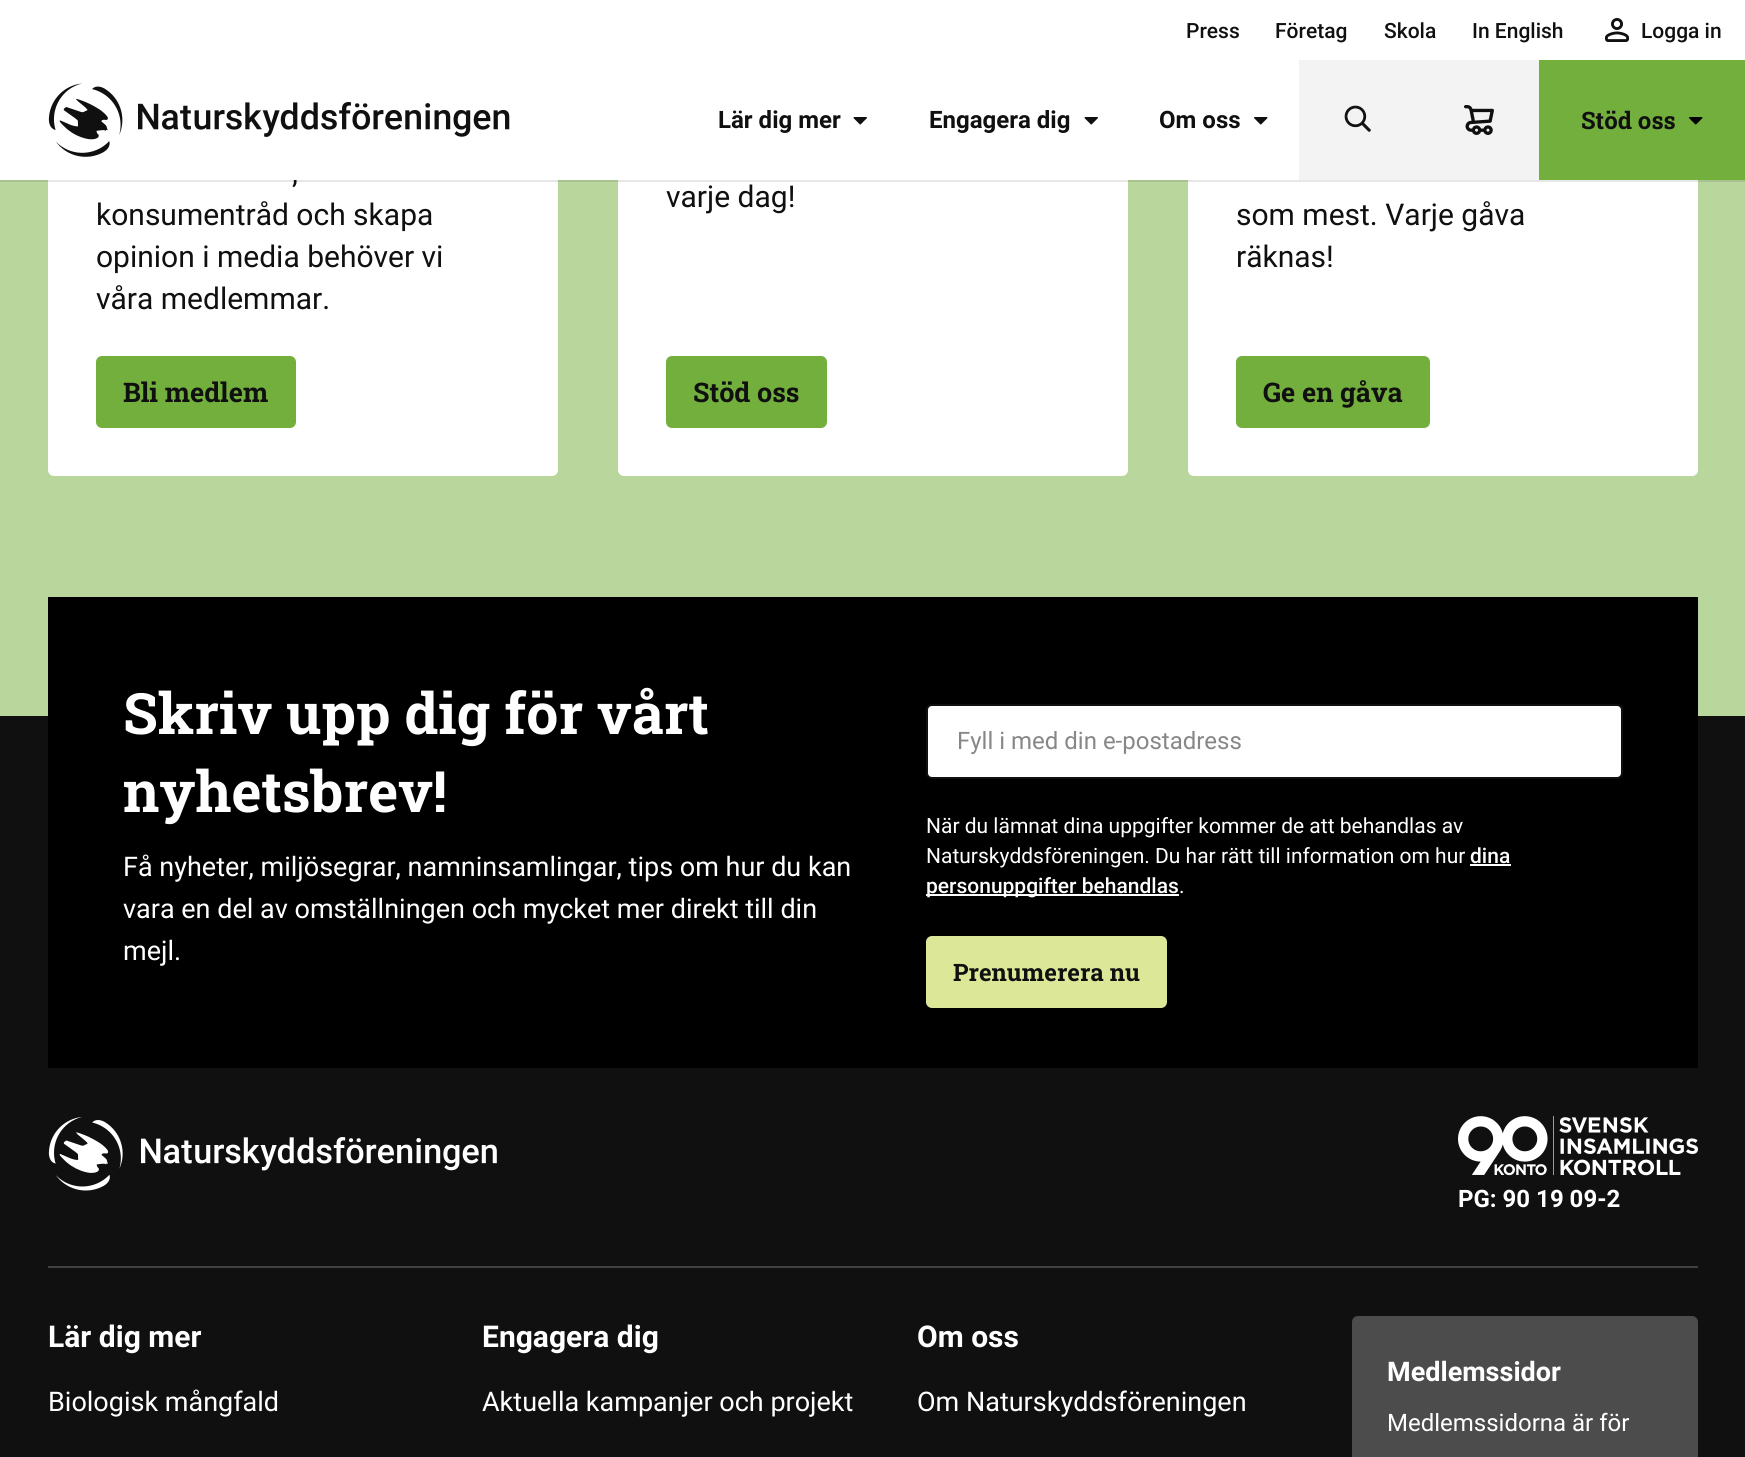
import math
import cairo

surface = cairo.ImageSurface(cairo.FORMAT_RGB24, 1745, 1457)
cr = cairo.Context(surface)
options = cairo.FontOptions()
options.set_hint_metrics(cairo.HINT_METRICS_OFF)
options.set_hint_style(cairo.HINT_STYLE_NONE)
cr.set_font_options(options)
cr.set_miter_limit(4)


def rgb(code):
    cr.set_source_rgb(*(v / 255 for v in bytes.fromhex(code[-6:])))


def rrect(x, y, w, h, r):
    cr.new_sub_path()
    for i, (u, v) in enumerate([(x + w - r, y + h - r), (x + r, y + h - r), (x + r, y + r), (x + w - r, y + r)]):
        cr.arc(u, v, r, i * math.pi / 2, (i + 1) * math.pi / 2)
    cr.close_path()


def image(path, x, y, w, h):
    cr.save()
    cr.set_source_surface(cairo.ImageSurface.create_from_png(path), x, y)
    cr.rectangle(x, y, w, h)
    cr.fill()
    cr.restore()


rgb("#b9d79d")
cr.paint()
rgb("#ffffff")
rrect(48, -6, 510, 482, 6)
cr.fill()
rrect(618, -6, 510, 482, 6)
cr.fill()
rrect(1188, -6, 510, 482, 6)
cr.fill()
cr.set_source_rgba(0.059, 0.059, 0.059, 0.1)
cr.rectangle(0, 180, 1745, 2)
cr.fill()
rgb("#73af3c")
rrect(97.5, 357.5, 197, 69, 4.5)
cr.fill_preserve()
cr.set_line_width(3)
cr.stroke()
rrect(667.5, 357.5, 158, 69, 4.5)
cr.fill_preserve()
cr.stroke()
rrect(1237.5, 357.5, 191, 69, 4.5)
cr.fill_preserve()
cr.stroke()
rgb("#101010")
cr.rectangle(0, 716, 1745, 741)
cr.fill()
rgb("#000000")
cr.rectangle(48, 597, 1650, 471)
cr.fill()
rgb("#ffffff")
rrect(927, 705, 695, 73, 5)
cr.fill_preserve()
rgb("#101010")
cr.set_line_width(2)
cr.stroke()
rgb("#ffffff")
cr.rectangle(1470, 864, 41, 2)
cr.fill()
cr.rectangle(926, 894, 253, 2)
cr.fill()
rgb("#dce898")
rrect(926, 936, 241, 72, 6)
cr.fill()
rgb("#404040")
cr.rectangle(48, 1266, 1650, 2)
cr.fill()
image("img/9.png", 48, 1117, 449, 74)
image("img/10.png", 1458, 1116, 240, 60)
rgb("#4c4c4c")
rrect(1352, 1316, 346, 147, 6)
cr.fill()
cr.select_font_face("Roboto")
cr.set_font_size(30)
rgb("#101010")
cr.move_to(292, 183)
cr.show_text(",")
rgb("#ffffff")
cr.rectangle(0, 0, 1745, 180)
cr.fill()
rgb("#73af3c")
cr.rectangle(1539, 60, 206, 120)
cr.fill()
image("img/8.png", 1689, 117, 14, 8)
cr.select_font_face("Roboto Slab", cairo.FONT_SLANT_NORMAL, cairo.FONT_WEIGHT_BOLD)
cr.set_font_size(24)
rgb("#101010")
cr.move_to(1581, 129)
cr.show_text("Stöd oss")
rgb("#f3f3f3")
cr.rectangle(1299, 60, 240, 120)
cr.fill()
image("img/7.png", 1464, 105, 30, 30)
image("img/4.png", 1344, 105, 27, 27)
image("img/6.png", 1254, 117, 14, 8)
cr.select_font_face("Roboto", cairo.FONT_SLANT_NORMAL, cairo.FONT_WEIGHT_BOLD)
rgb("#101010")
cr.move_to(1159, 128)
cr.show_text("Om oss")
image("img/5.png", 1084, 117, 14, 8)
cr.move_to(929, 128)
cr.show_text("Engagera dig")
image("img/5.png", 853, 117, 14, 8)
cr.move_to(718, 128)
cr.show_text("Lär dig mer")
image("img/3.png", 138, 102, 372, 35)
image("img/2.png", 48, 83, 75, 74)
image("img/1.png", 1605, 18, 24, 24)
cr.select_font_face("Roboto Medium")
cr.set_font_size(21)
for x, y, s in [
    (1641, 38, "Logga in"),
    (1472, 38, "In English"),
    (1384, 38, "Skola"),
    (1275, 38, "Företag"),
    (1186, 38, "Press"),
]:
    cr.move_to(x, y)
    cr.show_text(s)
cr.select_font_face("Roboto")
cr.set_font_size(30)
for x, y, s in [
    (96, 225, "konsumentråd och skapa"),
    (96, 267, "opinion i media behöver vi"),
    (96, 309, "våra medlemmar."),
]:
    cr.move_to(x, y)
    cr.show_text(s)
cr.select_font_face("Roboto Slab", cairo.FONT_SLANT_NORMAL, cairo.FONT_WEIGHT_BOLD)
cr.set_font_size(27)
cr.move_to(123, 402)
cr.show_text("Bli medlem")
cr.select_font_face("Roboto")
cr.set_font_size(30)
cr.move_to(666, 207)
cr.show_text("varje dag!")
cr.select_font_face("Roboto Slab", cairo.FONT_SLANT_NORMAL, cairo.FONT_WEIGHT_BOLD)
cr.set_font_size(27)
cr.move_to(693, 402)
cr.show_text("Stöd oss")
cr.select_font_face("Roboto")
cr.set_font_size(30)
cr.move_to(1236, 225)
cr.show_text("som mest. Varje gåva")
cr.move_to(1236, 267)
cr.show_text("räknas!")
cr.select_font_face("Roboto Slab", cairo.FONT_SLANT_NORMAL, cairo.FONT_WEIGHT_BOLD)
cr.set_font_size(27)
cr.move_to(1263, 402)
cr.show_text("Ge en gåva")
cr.set_font_size(57)
rgb("#ffffff")
cr.move_to(123, 734)
cr.show_text("Skriv upp dig för vårt")
cr.move_to(123, 812)
cr.show_text("nyhetsbrev!")
cr.select_font_face("Roboto")
cr.set_font_size(27)
for x, y, s in [
    (123, 876, "Få nyheter, miljösegrar, namninsamlingar, tips om hur du kan"),
    (123, 918, "vara en del av omställningen och mycket mer direkt till din"),
    (123, 960, "mejl."),
]:
    cr.move_to(x, y)
    cr.show_text(s)
cr.set_font_size(24)
rgb("#878787")
cr.move_to(957, 749)
cr.show_text("Fyll i med din e-postadress")
cr.set_font_size(21)
rgb("#ffffff")
cr.move_to(926, 833)
cr.show_text("När du lämnat dina uppgifter kommer de att behandlas av")
cr.move_to(926, 863)
cr.show_text("Naturskyddsföreningen. Du har rätt till information om hur")
cr.select_font_face("Roboto Medium")
cr.move_to(1470, 863)
cr.show_text("dina")
cr.move_to(926, 893)
cr.show_text("personuppgifter behandlas")
cr.select_font_face("Roboto")
cr.move_to(1179, 893)
cr.show_text(".")
cr.select_font_face("Roboto Slab", cairo.FONT_SLANT_NORMAL, cairo.FONT_WEIGHT_BOLD)
cr.set_font_size(24)
rgb("#101010")
cr.move_to(953, 981)
cr.show_text("Prenumerera nu")
cr.select_font_face("Roboto", cairo.FONT_SLANT_NORMAL, cairo.FONT_WEIGHT_BOLD)
rgb("#ffffff")
cr.move_to(1458, 1207)
cr.show_text("PG: 90 19 09-2")
cr.set_font_size(30)
cr.move_to(48, 1347)
cr.show_text("Lär dig mer")
cr.select_font_face("Roboto")
cr.set_font_size(27)
cr.move_to(48, 1411)
cr.show_text("Biologisk mångfald")
cr.select_font_face("Roboto", cairo.FONT_SLANT_NORMAL, cairo.FONT_WEIGHT_BOLD)
cr.set_font_size(30)
cr.move_to(482, 1347)
cr.show_text("Engagera dig")
cr.select_font_face("Roboto")
cr.set_font_size(27)
cr.move_to(482, 1411)
cr.show_text("Aktuella kampanjer och projekt")
cr.select_font_face("Roboto", cairo.FONT_SLANT_NORMAL, cairo.FONT_WEIGHT_BOLD)
cr.set_font_size(30)
cr.move_to(917, 1347)
cr.show_text("Om oss")
cr.select_font_face("Roboto")
cr.set_font_size(27)
cr.move_to(917, 1411)
cr.show_text("Om Naturskyddsföreningen")
cr.select_font_face("Roboto", cairo.FONT_SLANT_NORMAL, cairo.FONT_WEIGHT_BOLD)
cr.move_to(1387, 1381)
cr.show_text("Medlemssidor")
cr.select_font_face("Roboto")
cr.set_font_size(24)
cr.move_to(1387, 1431)
cr.show_text("Medlemssidorna är för")
surface.write_to_png("page.png")
